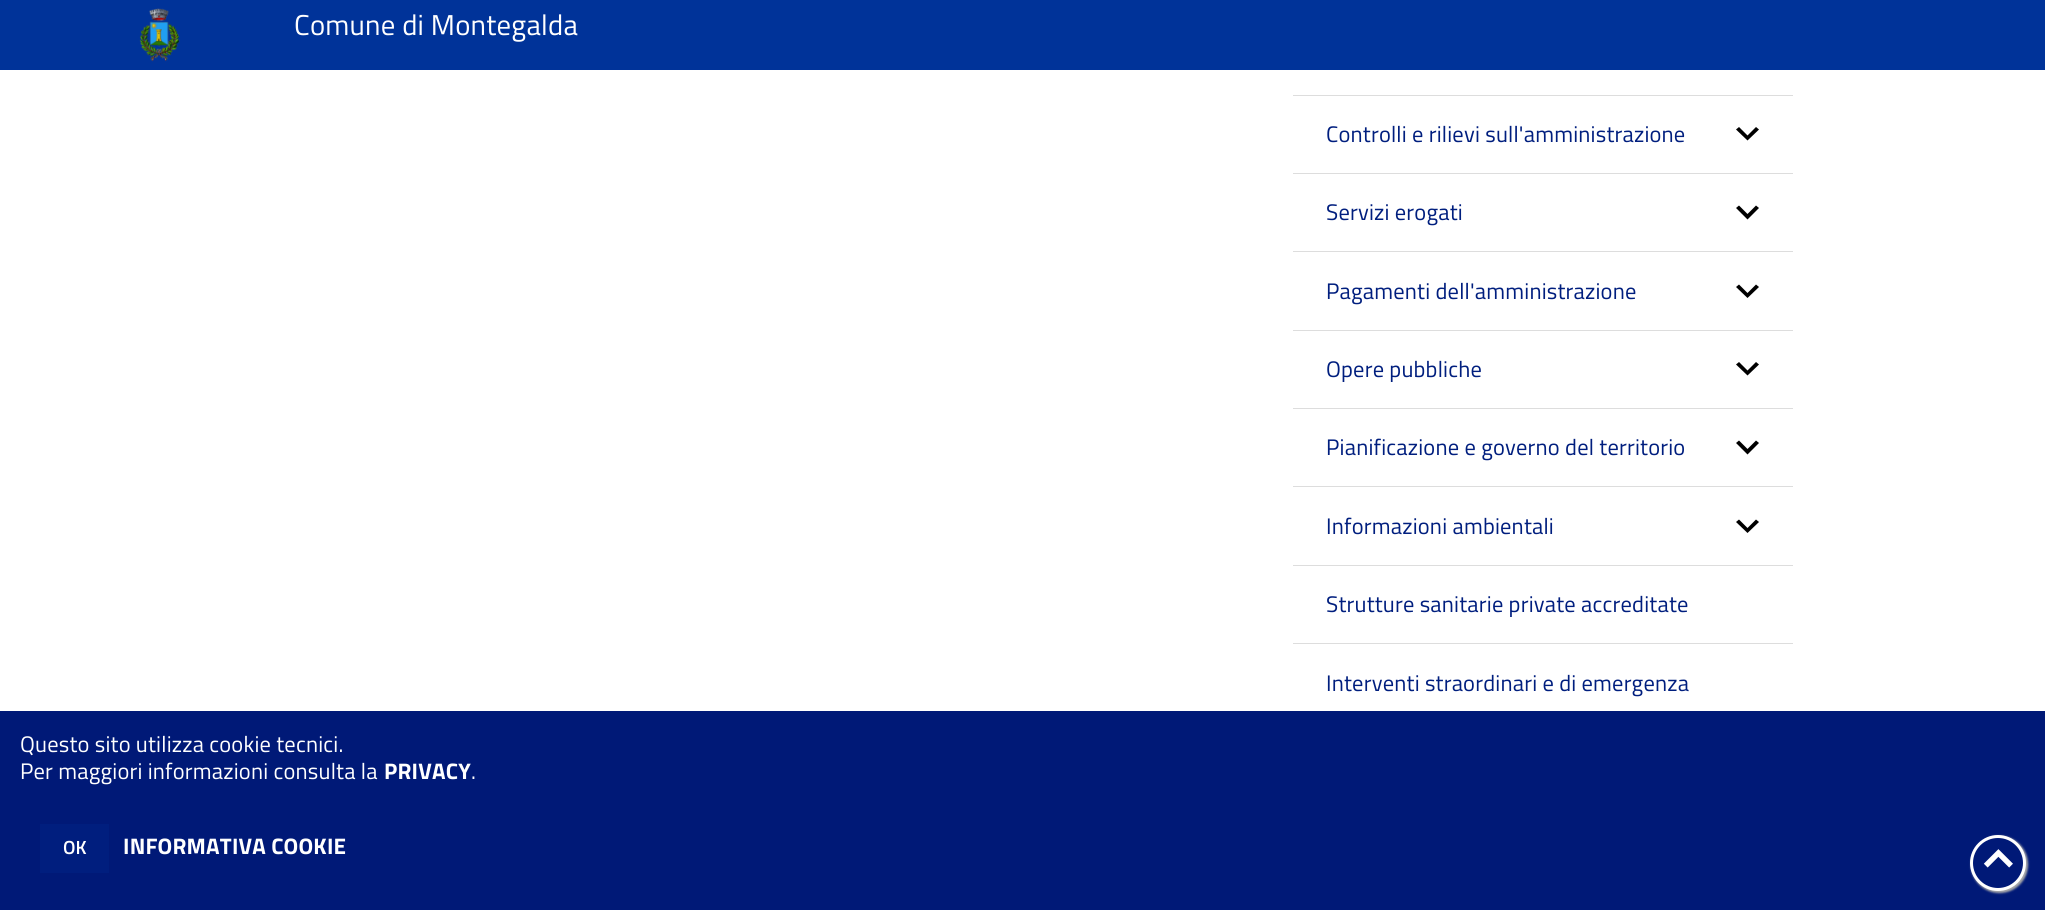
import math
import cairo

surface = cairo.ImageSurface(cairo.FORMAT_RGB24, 2045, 910)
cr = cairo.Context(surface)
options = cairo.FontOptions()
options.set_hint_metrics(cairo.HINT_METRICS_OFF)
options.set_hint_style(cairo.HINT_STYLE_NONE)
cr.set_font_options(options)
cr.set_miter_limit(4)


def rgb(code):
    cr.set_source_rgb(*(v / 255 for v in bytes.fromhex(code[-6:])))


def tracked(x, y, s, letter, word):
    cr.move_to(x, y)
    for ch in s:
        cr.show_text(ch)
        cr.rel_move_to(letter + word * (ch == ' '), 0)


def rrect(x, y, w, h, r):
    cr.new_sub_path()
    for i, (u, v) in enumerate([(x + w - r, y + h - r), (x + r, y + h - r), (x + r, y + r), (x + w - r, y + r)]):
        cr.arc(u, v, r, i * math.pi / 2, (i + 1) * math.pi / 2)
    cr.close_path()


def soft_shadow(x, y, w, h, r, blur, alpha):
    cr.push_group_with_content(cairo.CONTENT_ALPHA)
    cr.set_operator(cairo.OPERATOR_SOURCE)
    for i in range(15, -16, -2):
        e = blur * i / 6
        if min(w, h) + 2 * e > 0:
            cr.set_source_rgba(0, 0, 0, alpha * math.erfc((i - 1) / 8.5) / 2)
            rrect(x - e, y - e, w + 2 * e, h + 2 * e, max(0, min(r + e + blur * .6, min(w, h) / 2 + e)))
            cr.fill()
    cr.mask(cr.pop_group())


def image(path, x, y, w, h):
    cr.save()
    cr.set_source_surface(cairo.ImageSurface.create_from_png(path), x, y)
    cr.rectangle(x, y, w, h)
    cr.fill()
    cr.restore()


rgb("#ffffff")
cr.paint()
rgb("#003399")
cr.rectangle(0, 0, 2045, 70)
cr.fill()
image("img/1.png", 139, 8, 41, 54)
rgb("#dddddd")
cr.rectangle(1293, 95, 500, 1)
cr.fill()
rgb("#000000")
cr.new_path()
cr.move_to(1739, 127)
cr.line_to(1736, 129.5)
cr.line_to(1747.5, 140.5)
cr.line_to(1759, 129.5)
cr.line_to(1756, 127)
cr.line_to(1747.5, 135.5)
cr.close_path()
cr.fill()
rgb("#dddddd")
cr.rectangle(1293, 173, 500, 1)
cr.fill()
rgb("#000000")
cr.new_path()
cr.move_to(1739, 205.5)
cr.line_to(1736, 208)
cr.line_to(1747.5, 219.5)
cr.line_to(1759, 208)
cr.line_to(1756, 205.5)
cr.line_to(1747.5, 214)
cr.close_path()
cr.fill()
rgb("#dddddd")
cr.rectangle(1293, 251, 500, 1)
cr.fill()
rgb("#000000")
cr.new_path()
cr.move_to(1739, 284.5)
cr.line_to(1736, 287)
cr.line_to(1747.5, 298)
cr.line_to(1759, 287)
cr.line_to(1756, 284.5)
cr.line_to(1747.5, 293)
cr.close_path()
cr.fill()
rgb("#dddddd")
cr.rectangle(1293, 330, 500, 1)
cr.fill()
rgb("#000000")
cr.new_path()
cr.move_to(1739, 362)
cr.line_to(1736, 364.5)
cr.line_to(1747.5, 375.5)
cr.line_to(1759, 364.5)
cr.line_to(1756, 362)
cr.line_to(1747.5, 370.5)
cr.close_path()
cr.fill()
rgb("#dddddd")
cr.rectangle(1293, 408, 500, 1)
cr.fill()
rgb("#000000")
cr.new_path()
cr.move_to(1739, 440.5)
cr.line_to(1736, 443)
cr.line_to(1747.5, 454.5)
cr.line_to(1759, 443)
cr.line_to(1756, 440.5)
cr.line_to(1747.5, 449)
cr.close_path()
cr.fill()
rgb("#dddddd")
cr.rectangle(1293, 486, 500, 1)
cr.fill()
rgb("#000000")
cr.new_path()
cr.move_to(1739, 519.5)
cr.line_to(1736, 522)
cr.line_to(1747.5, 533)
cr.line_to(1759, 522)
cr.line_to(1756, 519.5)
cr.line_to(1747.5, 528)
cr.close_path()
cr.fill()
for x, y, w, h, color in [
    (1293, 565, 500, 1, "#dddddd"),
    (1293, 643, 500, 1, "#dddddd"),
    (0, 711, 2045, 199, "#001977"),
    (40, 824, 69, 49, "#001e7e"),
]:
    rgb(color)
    cr.rectangle(x, y, w, h)
    cr.fill()
rgb("#aaaaaa")
soft_shadow(1971, 836, 57, 57, 28.5, 1, 1)
rgb("#001977")
cr.arc(1998, 863, 26.5, 0, 2 * math.pi)
cr.fill_preserve()
rgb("#ffffff")
cr.set_line_width(3)
cr.stroke()
cr.select_font_face("Titillium Web")
cr.set_font_size(28.75)
tracked(294, 35, "Comune di Montegalda", 0.25, 0)
cr.set_font_size(22.5)
rgb("#001e7e")
for x, y, s in [
    (1326, 142, "Controlli e rilievi sull'amministrazione"),
    (1326, 220, "Servizi erogati"),
    (1326, 299, "Pagamenti dell'amministrazione"),
    (1326, 377, "Opere pubbliche"),
    (1326, 455, "Pianificazione e governo del territorio"),
    (1326, 534, "Informazioni ambientali"),
    (1326, 612, "Strutture sanitarie private accreditate"),
    (1326, 691, "Interventi straordinari e di emergenza"),
]:
    tracked(x, y, s, 0.2, 0)
rgb("#ffffff")
tracked(20, 752, "Questo sito utilizza cookie tecnici.", 0.2, 0)
tracked(20, 779, "Per maggiori informazioni consulta la", 0.2, 0)
cr.select_font_face("Titillium Web", cairo.FONT_SLANT_NORMAL, cairo.FONT_WEIGHT_BOLD)
tracked(384, 779, "PRIVACY", 0.2, 0)
cr.select_font_face("Titillium Web")
tracked(471, 779, ".", 0.2, 0)
cr.select_font_face("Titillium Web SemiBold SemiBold")
cr.set_font_size(19)
cr.move_to(63, 854)
cr.show_text("OK")
cr.select_font_face("Titillium Web", cairo.FONT_SLANT_NORMAL, cairo.FONT_WEIGHT_BOLD)
cr.set_font_size(22.5)
tracked(123, 854, "INFORMATIVA COOKIE", 0.2, 0)
cr.select_font_face("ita", cairo.FONT_SLANT_NORMAL, cairo.FONT_WEIGHT_BOLD)
cr.set_font_size(28)
cr.move_to(1984, 871)
cr.show_text("⏷")
surface.write_to_png("page.png")
